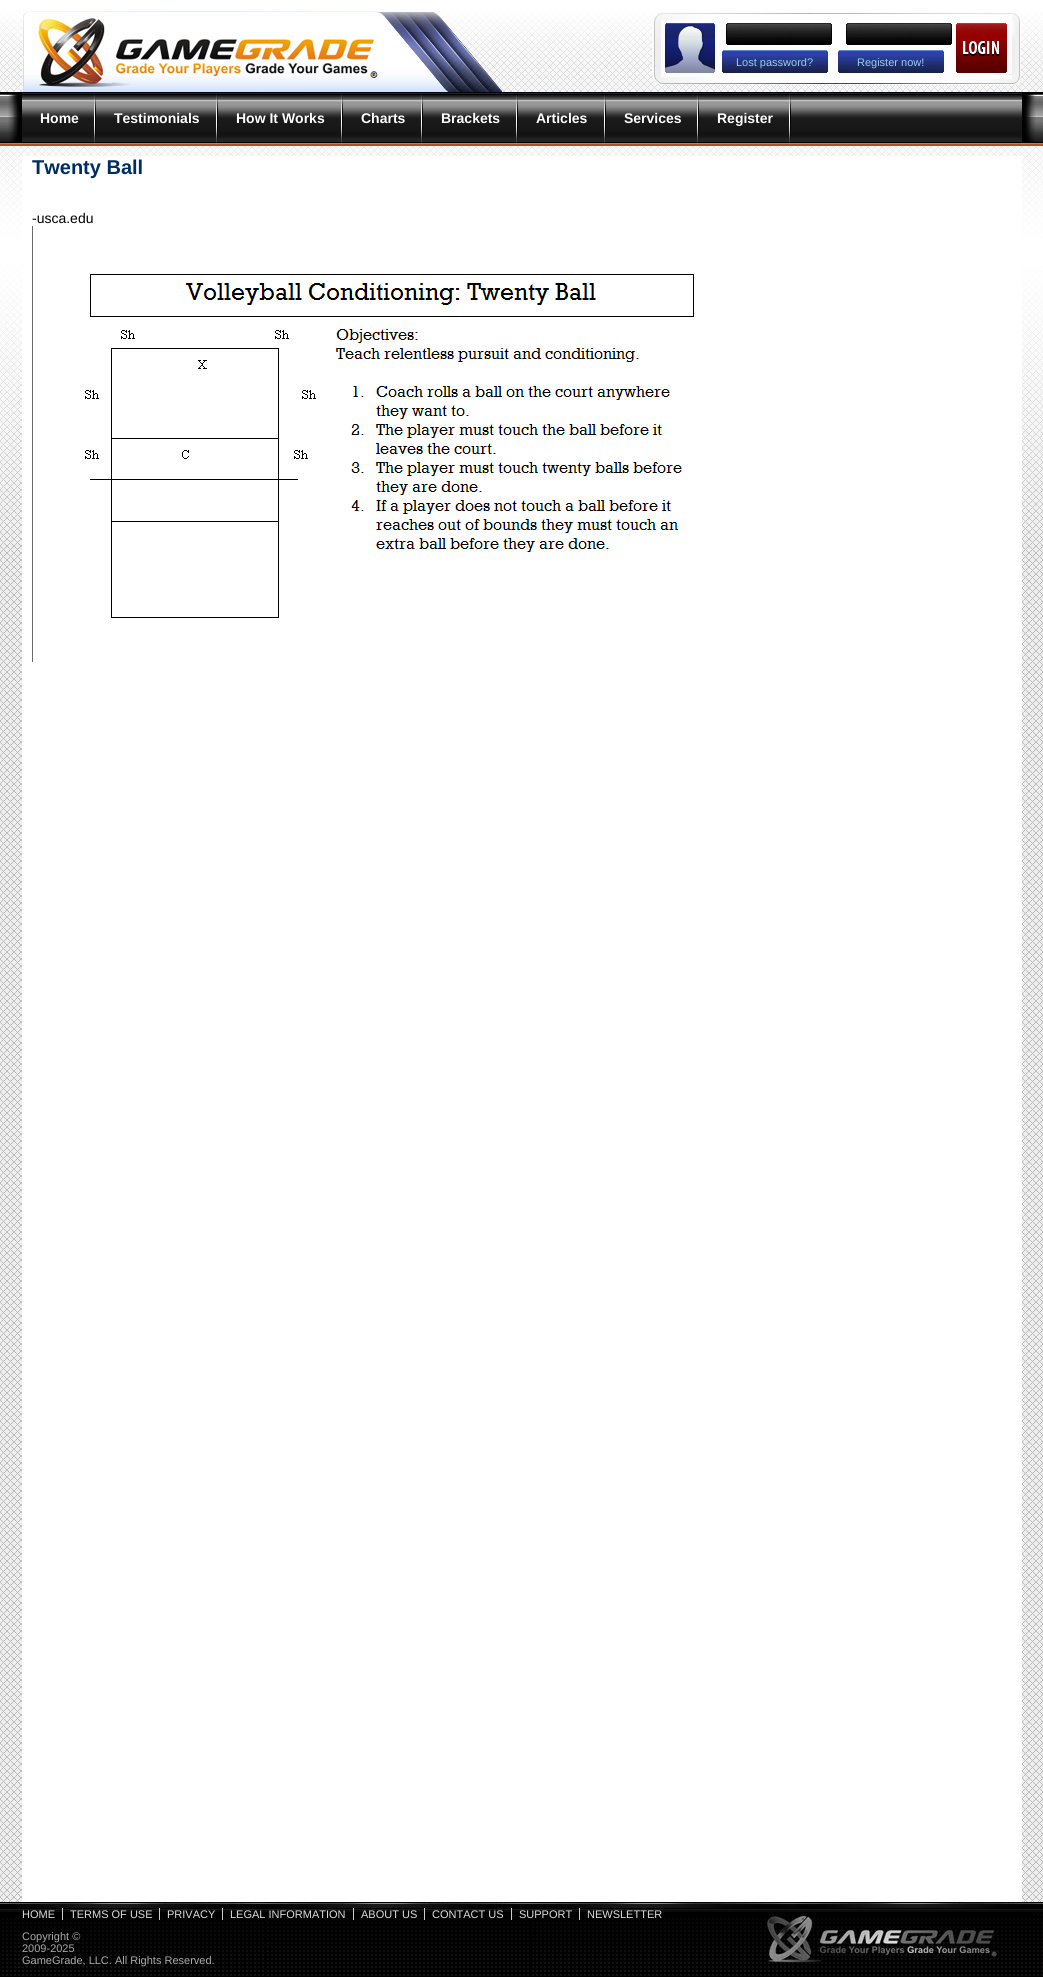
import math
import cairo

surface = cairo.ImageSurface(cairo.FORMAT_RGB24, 1043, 1977)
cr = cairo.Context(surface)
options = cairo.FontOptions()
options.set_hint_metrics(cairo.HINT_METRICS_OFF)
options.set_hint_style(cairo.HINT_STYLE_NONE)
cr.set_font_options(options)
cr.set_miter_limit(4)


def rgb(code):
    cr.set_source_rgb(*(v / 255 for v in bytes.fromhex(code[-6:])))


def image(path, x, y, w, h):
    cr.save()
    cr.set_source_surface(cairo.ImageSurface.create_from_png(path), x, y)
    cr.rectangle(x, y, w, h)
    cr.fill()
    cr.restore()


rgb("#ffffff")
cr.paint()
image("img/1.png", 0, 6, 1043, 1896)
image("img/2.png", 0, 0, 1043, 544)
image("img/3.png", 22, 11, 480, 81)
image("img/4.png", 652, 13, 370, 73)
image("img/5.png", 726, 23, 106, 22)
image("img/6.png", 846, 23, 106, 22)
image("img/7.png", 956, 23, 51, 50)
image("img/8.png", 722, 50, 106, 23)
image("img/9.png", 838, 50, 106, 23)
rgb("#000000")
cr.rectangle(0, 92, 1043, 2)
cr.fill()
image("img/10.png", 0, 94, 1043, 52)
image("img/11.png", 8, 94, 14, 48)
image("img/12.png", 22, 92, 1000, 54)
image("img/13.png", 94, 94, 2, 52)
image("img/13.png", 216, 94, 2, 52)
image("img/13.png", 341, 94, 2, 52)
image("img/13.png", 421, 94, 2, 52)
image("img/13.png", 516, 94, 2, 52)
image("img/13.png", 604, 94, 2, 52)
image("img/13.png", 697, 94, 2, 52)
image("img/13.png", 789, 94, 2, 52)
image("img/14.png", 1022, 94, 14, 48)
rgb("#ffffff")
cr.rectangle(22, 156, 1000, 1746)
cr.fill()
image("img/15.png", 32, 226, 662, 436)
image("img/16.png", 0, 1902, 1043, 75)
for x, y, w, h, color in [
    (62, 1908, 1, 12, "#cccccc"),
    (159, 1908, 1, 12, "#cccccc"),
    (222, 1908, 1, 12, "#cccccc"),
    (353, 1908, 1, 12, "#cccccc"),
    (424, 1908, 1, 12, "#cccccc"),
    (511, 1908, 1, 12, "#cccccc"),
    (579, 1908, 1, 12, "#cccccc"),
]:
    rgb(color)
    cr.rectangle(x, y, w, h)
    cr.fill()
image("img/17.png", 767, 1915, 231, 48)
cr.select_font_face("Liberation Sans")
cr.set_font_size(11)
rgb("#94cfe2")
cr.move_to(736, 66)
cr.show_text("Lost password?")
cr.move_to(857, 66)
cr.show_text("Register now!")
cr.select_font_face("Liberation Sans", cairo.FONT_SLANT_NORMAL, cairo.FONT_WEIGHT_BOLD)
cr.set_font_size(14)
rgb("#ffffff")
for x, y, s in [
    (40, 123, "Home"),
    (114, 123, "Testimonials"),
    (236, 123, "How It Works"),
    (361, 123, "Charts"),
    (441, 123, "Brackets"),
    (536, 123, "Articles"),
    (624, 123, "Services"),
    (717, 123, "Register"),
]:
    cr.move_to(x, y)
    cr.show_text(s)
cr.set_font_size(20)
rgb("#002d61")
cr.move_to(32, 174)
cr.show_text("Twenty Ball")
cr.select_font_face("Liberation Sans")
cr.set_font_size(14)
rgb("#000000")
cr.move_to(32, 223)
cr.show_text("-usca.edu")
cr.set_font_size(11)
rgb("#dddddd")
for x, y, s in [
    (22, 1918, "HOME"),
    (70, 1918, "TERMS OF USE"),
    (167, 1918, "PRIVACY"),
    (230, 1918, "LEGAL INFORMATION"),
    (361, 1918, "ABOUT US"),
    (432, 1918, "CONTACT US"),
    (519, 1918, "SUPPORT"),
    (587, 1918, "NEWSLETTER"),
]:
    cr.move_to(x, y)
    cr.show_text(s)
rgb("#aaaaaa")
for x, y, s in [
    (22, 1940, "Copyright ©"),
    (22, 1952, "2009-2025"),
    (22, 1964, "GameGrade, LLC. All Rights Reserved."),
]:
    cr.move_to(x, y)
    cr.show_text(s)
surface.write_to_png("page.png")
